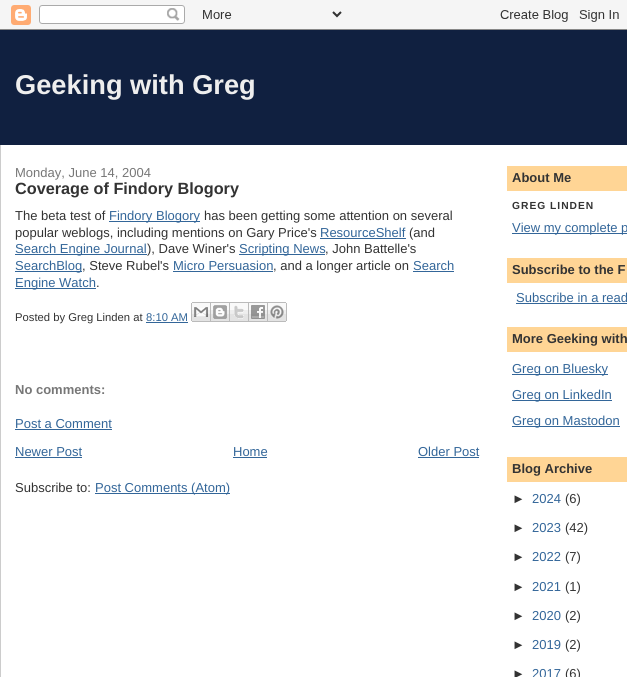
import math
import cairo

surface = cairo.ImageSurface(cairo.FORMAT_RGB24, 627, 677)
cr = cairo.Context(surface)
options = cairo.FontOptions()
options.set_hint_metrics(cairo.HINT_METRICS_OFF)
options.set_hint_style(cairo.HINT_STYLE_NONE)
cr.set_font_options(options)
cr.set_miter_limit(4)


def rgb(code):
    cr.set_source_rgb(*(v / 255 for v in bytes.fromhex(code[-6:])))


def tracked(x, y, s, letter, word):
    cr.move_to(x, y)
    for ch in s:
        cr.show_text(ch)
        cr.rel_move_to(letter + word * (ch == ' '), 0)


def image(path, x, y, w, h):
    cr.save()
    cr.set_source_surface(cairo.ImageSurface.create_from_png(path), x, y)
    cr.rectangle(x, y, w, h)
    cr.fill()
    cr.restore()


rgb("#efefef")
cr.paint()
image("img/1.png", 0, 0, 627, 30)
for x, y, w, h, color in [
    (0, 30, 627, 115, "#102040"),
    (1, 145, 626, 532, "#ffffff"),
    (0, 145, 1, 532, "#cccccc"),
    (109, 221, 91, 1, "#336699"),
    (320, 238, 86, 1, "#336699"),
    (15, 254, 132, 1, "#336699"),
    (239, 254, 86, 1, "#336699"),
    (15, 271, 67, 1, "#336699"),
    (173, 271, 100, 1, "#336699"),
    (413, 271, 41, 1, "#336699"),
    (15, 288, 81, 1, "#336699"),
    (146, 322, 42, 1, "#336699"),
]:
    rgb(color)
    cr.rectangle(x, y, w, h)
    cr.fill()
image("img/2.png", 191, 302, 20, 20)
image("img/3.png", 211, 302, 19, 20)
image("img/4.png", 230, 302, 19, 20)
image("img/5.png", 249, 302, 19, 20)
image("img/6.png", 268, 302, 19, 20)
for x, y, w, h, color in [
    (15, 429, 97, 1, "#336699"),
    (15, 457, 67, 1, "#336699"),
    (233, 457, 34, 1, "#336699"),
    (418, 457, 61, 1, "#336699"),
    (95, 493, 135, 1, "#336699"),
    (507, 166, 120, 25, "#ffd595"),
    (512, 233, 115, 1, "#336699"),
    (507, 258, 120, 25, "#ffd595"),
    (516, 303, 111, 1, "#336699"),
    (507, 327, 120, 25, "#ffd595"),
    (512, 374, 96, 1, "#336699"),
    (512, 400, 100, 1, "#336699"),
    (512, 426, 108, 1, "#336699"),
    (507, 457, 120, 25, "#ffd595"),
]:
    rgb(color)
    cr.rectangle(x, y, w, h)
    cr.fill()
cr.select_font_face("Liberation Sans", cairo.FONT_SLANT_NORMAL, cairo.FONT_WEIGHT_BOLD)
cr.set_font_size(27.25)
rgb("#eeeeee")
cr.move_to(15, 94)
cr.show_text("Geeking with Greg")
cr.select_font_face("Liberation Sans")
cr.set_font_size(13)
rgb("#777777")
cr.move_to(15, 177)
cr.show_text("Monday, June 14, 2004")
cr.select_font_face("Liberation Sans", cairo.FONT_SLANT_NORMAL, cairo.FONT_WEIGHT_BOLD)
cr.set_font_size(16.25)
rgb("#333333")
cr.move_to(15, 194)
cr.show_text("Coverage of Findory Blogory")
cr.select_font_face("Liberation Sans")
cr.set_font_size(13)
cr.move_to(15, 220)
cr.show_text("The beta test of")
rgb("#336699")
cr.move_to(109, 220)
cr.show_text("Findory Blogory")
rgb("#333333")
cr.move_to(204, 220)
cr.show_text("has been getting some attention on several")
cr.move_to(15, 237)
cr.show_text("popular weblogs, including mentions on Gary Price's")
rgb("#336699")
cr.move_to(320, 237)
cr.show_text("ResourceShelf")
rgb("#333333")
cr.move_to(409, 237)
cr.show_text("(and")
rgb("#336699")
cr.move_to(15, 253)
cr.show_text("Search Engine Journal")
rgb("#333333")
cr.move_to(147, 253)
cr.show_text("), Dave Winer's")
rgb("#336699")
cr.move_to(239, 253)
cr.show_text("Scripting News")
rgb("#333333")
cr.move_to(325, 253)
cr.show_text(", John Battelle's")
rgb("#336699")
cr.move_to(15, 270)
cr.show_text("SearchBlog")
rgb("#333333")
cr.move_to(82, 270)
cr.show_text(", Steve Rubel's")
rgb("#336699")
cr.move_to(173, 270)
cr.show_text("Micro Persuasion")
rgb("#333333")
cr.move_to(273, 270)
cr.show_text(", and a longer article on")
rgb("#336699")
cr.move_to(413, 270)
cr.show_text("Search")
cr.move_to(15, 287)
cr.show_text("Engine Watch")
rgb("#333333")
cr.move_to(96, 287)
cr.show_text(".")
cr.set_font_size(11.25)
cr.move_to(15, 321)
cr.show_text("Posted by Greg Linden at")
rgb("#336699")
cr.move_to(146, 321)
cr.show_text("8:10 AM")
cr.select_font_face("Liberation Sans", cairo.FONT_SLANT_NORMAL, cairo.FONT_WEIGHT_BOLD)
cr.set_font_size(13)
rgb("#777777")
cr.move_to(15, 394)
cr.show_text("No comments:")
cr.select_font_face("Liberation Sans")
rgb("#336699")
for x, y, s in [
    (15, 428, "Post a Comment"),
    (15, 456, "Newer Post"),
    (233, 456, "Home"),
    (418, 456, "Older Post"),
]:
    cr.move_to(x, y)
    cr.show_text(s)
rgb("#333333")
cr.move_to(15, 492)
cr.show_text("Subscribe to:")
rgb("#336699")
cr.move_to(95, 492)
cr.show_text("Post Comments (Atom)")
cr.select_font_face("Liberation Sans", cairo.FONT_SLANT_NORMAL, cairo.FONT_WEIGHT_BOLD)
rgb("#333333")
cr.move_to(512, 182)
cr.show_text("About Me")
cr.set_font_size(10.25)
tracked(512, 209, "GREG LINDEN", 1, 0)
cr.select_font_face("Liberation Sans")
cr.set_font_size(13)
rgb("#336699")
cr.move_to(512, 232)
cr.show_text("View my complete p")
cr.select_font_face("Liberation Sans", cairo.FONT_SLANT_NORMAL, cairo.FONT_WEIGHT_BOLD)
rgb("#333333")
cr.move_to(512, 274)
cr.show_text("Subscribe to the F")
cr.select_font_face("Liberation Sans")
rgb("#336699")
cr.move_to(516, 302)
cr.show_text("Subscribe in a read")
cr.select_font_face("Liberation Sans", cairo.FONT_SLANT_NORMAL, cairo.FONT_WEIGHT_BOLD)
rgb("#333333")
cr.move_to(512, 343)
cr.show_text("More Geeking with")
cr.select_font_face("Liberation Sans")
rgb("#336699")
for x, y, s in [
    (512, 373, "Greg on Bluesky"),
    (512, 399, "Greg on LinkedIn"),
    (512, 425, "Greg on Mastodon"),
]:
    cr.move_to(x, y)
    cr.show_text(s)
cr.select_font_face("Liberation Sans", cairo.FONT_SLANT_NORMAL, cairo.FONT_WEIGHT_BOLD)
rgb("#333333")
cr.move_to(512, 473)
cr.show_text("Blog Archive")
cr.select_font_face("Liberation Sans")
cr.move_to(512, 503)
cr.show_text("►")
rgb("#336699")
cr.move_to(532, 503)
cr.show_text("2024")
rgb("#333333")
cr.move_to(565, 503)
cr.show_text("(6)")
cr.move_to(512, 532)
cr.show_text("►")
rgb("#336699")
cr.move_to(532, 532)
cr.show_text("2023")
rgb("#333333")
cr.move_to(565, 532)
cr.show_text("(42)")
cr.move_to(512, 561)
cr.show_text("►")
rgb("#336699")
cr.move_to(532, 561)
cr.show_text("2022")
rgb("#333333")
cr.move_to(565, 561)
cr.show_text("(7)")
cr.move_to(512, 591)
cr.show_text("►")
rgb("#336699")
cr.move_to(532, 591)
cr.show_text("2021")
rgb("#333333")
cr.move_to(565, 591)
cr.show_text("(1)")
cr.move_to(512, 620)
cr.show_text("►")
rgb("#336699")
cr.move_to(532, 620)
cr.show_text("2020")
rgb("#333333")
cr.move_to(565, 620)
cr.show_text("(2)")
cr.move_to(512, 649)
cr.show_text("►")
rgb("#336699")
cr.move_to(532, 649)
cr.show_text("2019")
rgb("#333333")
cr.move_to(565, 649)
cr.show_text("(2)")
cr.move_to(512, 678)
cr.show_text("►")
rgb("#336699")
cr.move_to(532, 678)
cr.show_text("2017")
rgb("#333333")
cr.move_to(565, 678)
cr.show_text("(6)")
surface.write_to_png("page.png")
